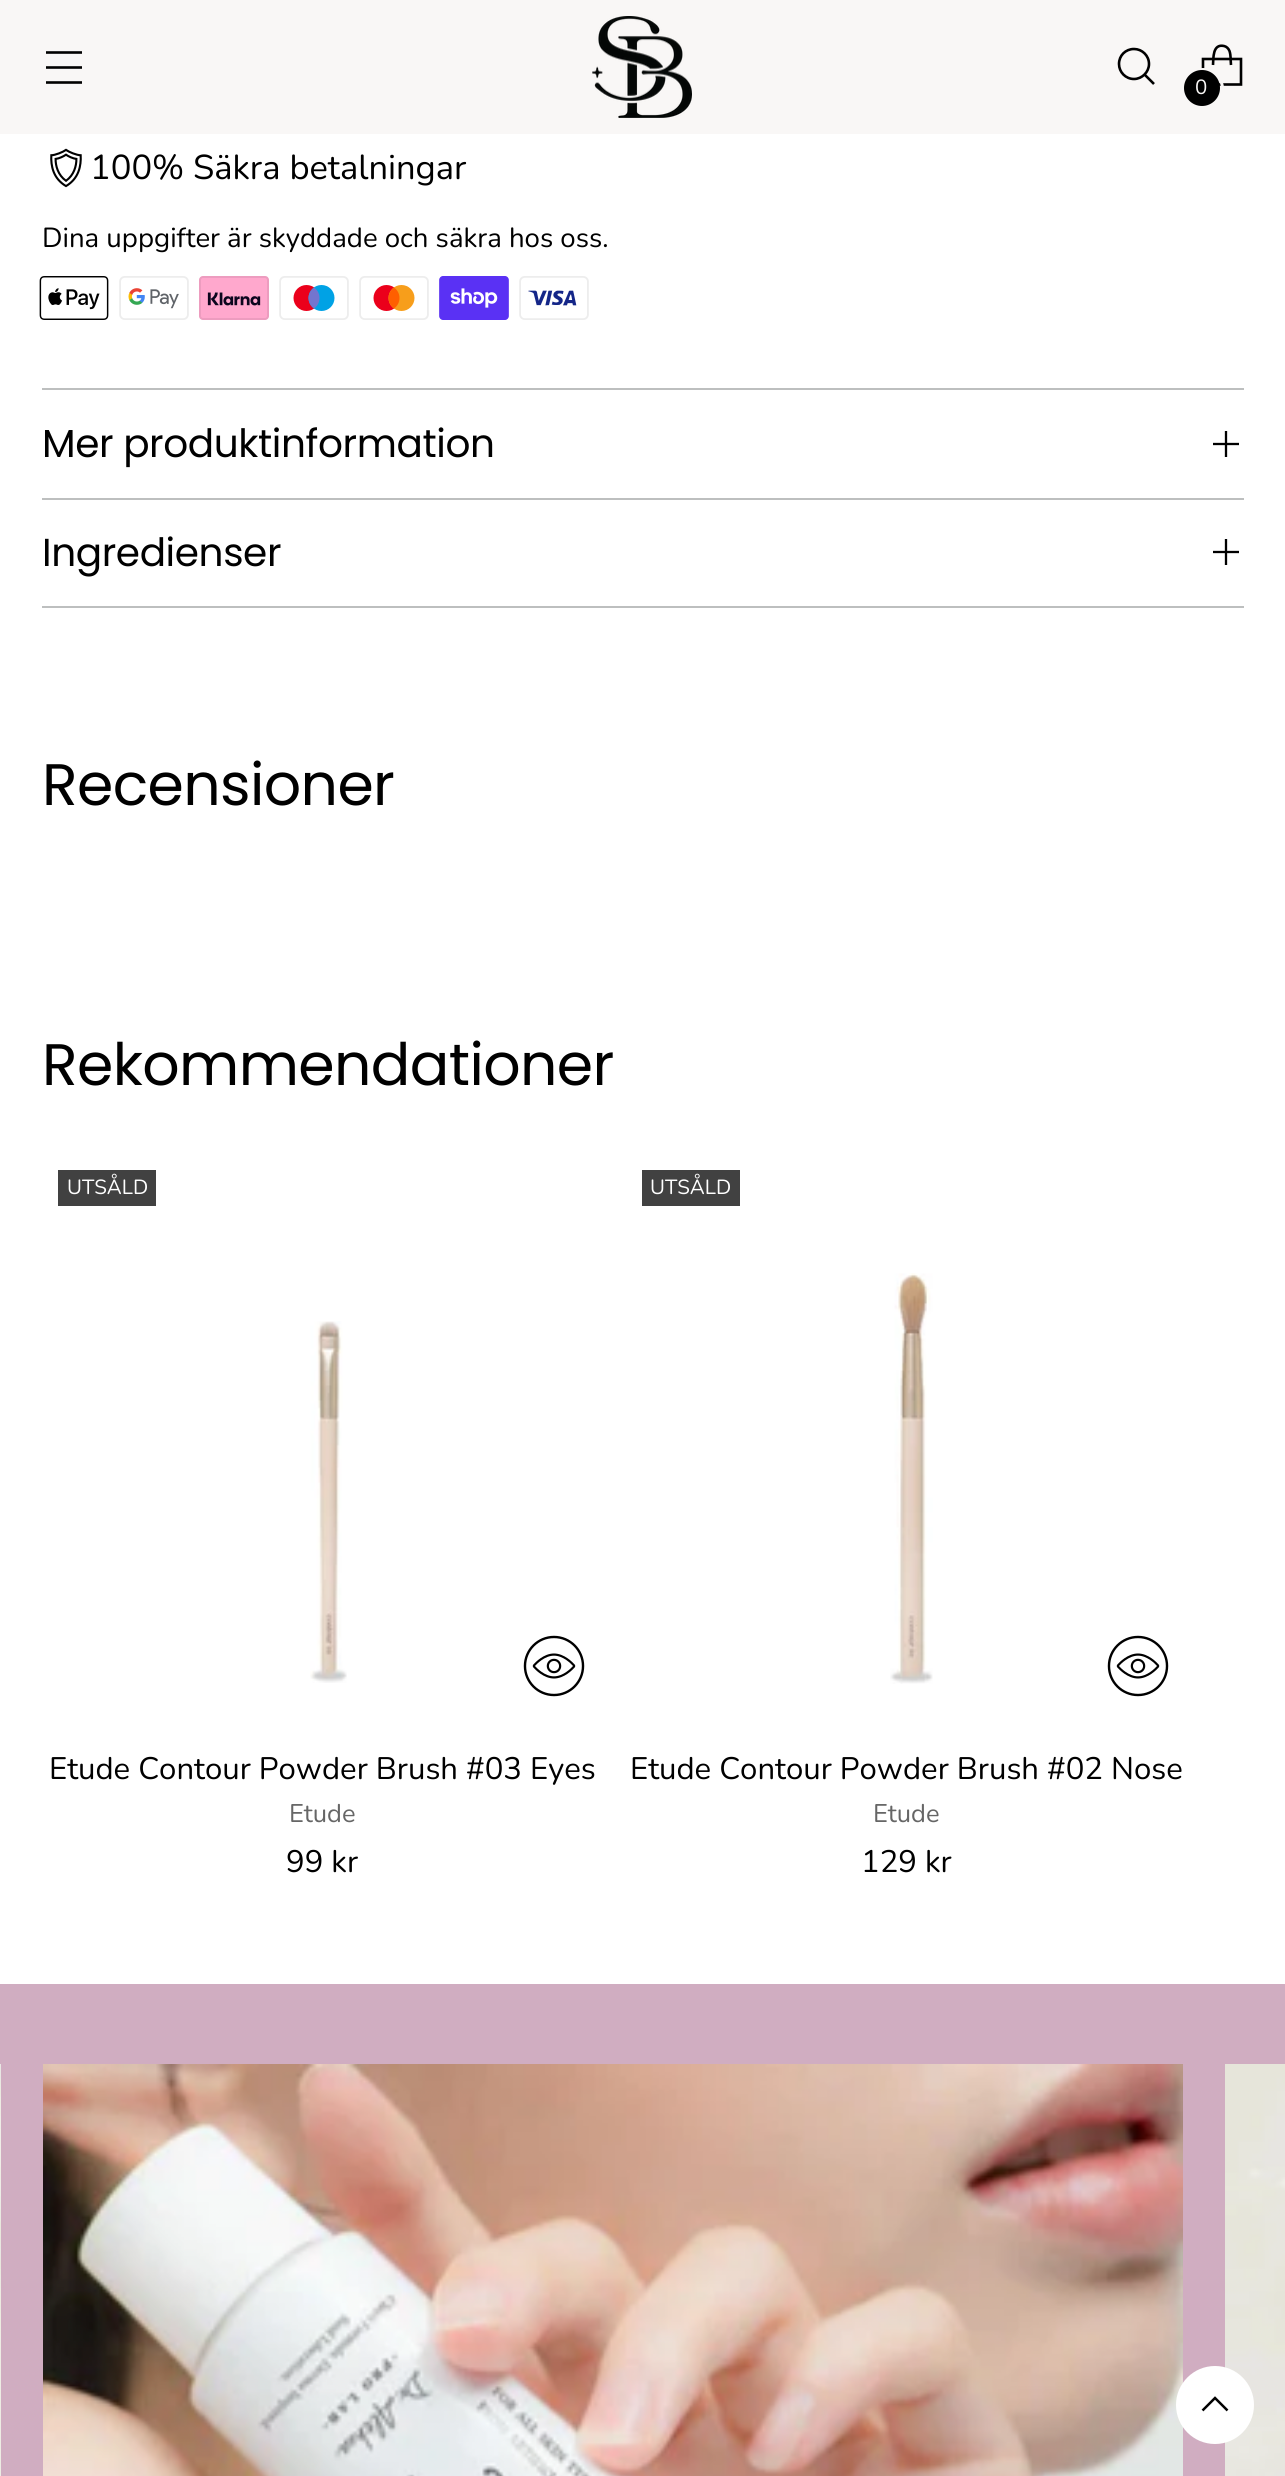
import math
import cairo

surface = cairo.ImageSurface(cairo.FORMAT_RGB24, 1285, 2476)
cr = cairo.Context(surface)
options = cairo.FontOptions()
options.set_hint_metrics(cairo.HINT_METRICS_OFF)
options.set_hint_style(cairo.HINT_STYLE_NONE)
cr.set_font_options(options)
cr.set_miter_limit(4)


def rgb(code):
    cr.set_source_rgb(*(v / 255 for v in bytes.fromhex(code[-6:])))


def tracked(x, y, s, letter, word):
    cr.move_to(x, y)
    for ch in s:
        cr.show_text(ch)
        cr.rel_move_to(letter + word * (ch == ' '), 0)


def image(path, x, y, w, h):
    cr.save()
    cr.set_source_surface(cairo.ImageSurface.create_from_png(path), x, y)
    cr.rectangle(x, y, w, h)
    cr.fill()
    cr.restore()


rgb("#ffffff")
cr.paint()
rgb("#f9f7f6")
cr.rectangle(0, 0, 1285, 134)
cr.fill()
cr.new_path()
cr.move_to(46, 67.5)
cr.line_to(82, 67.5)
cr.move_to(46, 52.5)
cr.line_to(82, 52.5)
cr.move_to(46, 82.5)
cr.line_to(82, 82.5)
rgb("#000000")
cr.set_line_width(2.6)
cr.stroke()
image("img/1.png", 592, 16, 100, 102)
cr.new_path()
cr.move_to(1134, 79)
cr.curve_to(1142, 79, 1149, 72, 1149, 64)
cr.curve_to(1149, 55.5, 1142, 49, 1134, 49)
cr.curve_to(1125.5, 49, 1119, 55.5, 1119, 64)
cr.curve_to(1119, 72, 1125.5, 79, 1134, 79)
cr.close_path()
cr.set_line_cap(cairo.LINE_CAP_ROUND)
cr.stroke()
cr.new_path()
cr.move_to(1144.5, 74.5)
cr.line_to(1154, 84)
cr.set_line_cap(cairo.LINE_CAP_BUTT)
cr.stroke()
cr.new_path()
cr.move_to(1231, 65)
cr.curve_to(1230.5, 60.5, 1231, 55.5, 1229.5, 51)
cr.curve_to(1228.5, 48.5, 1226.5, 46.5, 1224, 46)
cr.curve_to(1212.5, 43.5, 1213.5, 58, 1213, 65)
cr.set_line_join(cairo.LINE_JOIN_BEVEL)
cr.stroke()
cr.new_path()
cr.move_to(1241, 84.5)
cr.line_to(1241, 59)
cr.line_to(1203, 59)
cr.line_to(1203, 84.5)
cr.close_path()
cr.set_line_join(cairo.LINE_JOIN_MITER)
cr.stroke()
cr.arc(1203, 89, 19.5, 0, 2 * math.pi)
rgb("#f9f7f6")
cr.set_line_width(3)
cr.stroke()
rgb("#000000")
cr.arc(1202, 88, 18, 0, 2 * math.pi)
cr.fill()
image("img/2.png", 50, 148, 32, 40)
image("img/3.png", 39, 276, 70, 44)
image("img/4.png", 119, 276, 70, 44)
image("img/5.png", 199, 276, 70, 44)
image("img/6.png", 279, 276, 70, 44)
image("img/7.png", 359, 276, 70, 44)
image("img/8.png", 439, 276, 70, 44)
image("img/9.png", 519, 276, 70, 44)
rgb("#bdbfbf")
cr.rectangle(42, 388, 1202, 2)
cr.fill()
cr.rectangle(42, 498, 1202, 2)
cr.fill()
cr.new_path()
cr.move_to(1213, 444)
cr.line_to(1226, 444)
cr.move_to(1239, 444)
cr.line_to(1226, 444)
cr.move_to(1226, 444)
cr.line_to(1226, 431)
cr.move_to(1226, 444)
cr.line_to(1226, 457)
rgb("#000000")
cr.set_line_width(2.3)
cr.stroke()
rgb("#bdbfbf")
cr.rectangle(42, 606, 1202, 2)
cr.fill()
cr.new_path()
cr.move_to(1213, 552)
cr.line_to(1226, 552)
cr.move_to(1239, 552)
cr.line_to(1226, 552)
cr.move_to(1226, 552)
cr.line_to(1226, 539)
cr.move_to(1226, 552)
cr.line_to(1226, 565)
rgb("#000000")
cr.stroke()
rgb("#414141")
cr.rectangle(58, 1170, 98, 36)
cr.fill()
image("img/10.png", 310, 1321, 37, 362)
image("img/11.png", 523, 1635, 62, 62)
cr.rectangle(642, 1170, 98, 36)
cr.fill()
image("img/12.png", 890, 1273, 43, 411)
image("img/11.png", 1107, 1635, 62, 62)
rgb("#d0adc1")
cr.rectangle(0, 1984, 1285, 492)
cr.fill()
image("img/13.png", 0, 2064, 1, 412)
image("img/14.png", 43, 2064, 1140, 412)
image("img/15.png", 1225, 2064, 60, 412)
rgb("#ffffff")
cr.arc(1215, 2405, 39, 0, 2 * math.pi)
cr.fill()
cr.new_path()
cr.move_to(1227.5, 2410.5)
cr.line_to(1215, 2398)
cr.line_to(1202.5, 2410.5)
rgb("#000000")
cr.set_line_width(2.5)
cr.stroke()
cr.select_font_face("Nunito")
cr.set_font_size(20.5)
rgb("#f9f7f6")
cr.move_to(1195, 94)
cr.show_text("0")
cr.set_font_size(34.5)
rgb("#000000")
cr.move_to(90, 179)
cr.show_text("100% Säkra betalningar")
cr.set_font_size(27.6)
cr.move_to(42, 247)
cr.show_text("Dina uppgifter är skyddade och säkra hos oss.")
cr.select_font_face("Poppins")
cr.set_font_size(39)
tracked(42, 457, "Mer produktinformation", -0.4, 0)
tracked(42, 566, "Ingredienser", -0.4, 0)
cr.set_font_size(58.5)
tracked(42, 805, "Recensioner", -0.6, 0)
tracked(42, 1085, "Rekommendationer", -0.6, 0)
cr.select_font_face("Nunito")
cr.set_font_size(20.5)
rgb("#ffffff")
cr.move_to(67, 1194)
cr.show_text("UTSÅLD")
cr.set_font_size(31.1)
rgb("#000000")
cr.move_to(49, 1779)
cr.show_text("Etude Contour Powder Brush #03 Eyes")
cr.set_font_size(25.5)
rgb("#666666")
cr.move_to(289, 1822)
cr.show_text("Etude")
cr.set_font_size(31.1)
rgb("#000000")
cr.move_to(286, 1872)
cr.show_text("99 kr")
cr.set_font_size(20.5)
rgb("#ffffff")
cr.move_to(650, 1194)
cr.show_text("UTSÅLD")
cr.set_font_size(31.1)
rgb("#000000")
cr.move_to(630, 1779)
cr.show_text("Etude Contour Powder Brush #02 Nose")
cr.set_font_size(25.5)
rgb("#666666")
cr.move_to(873, 1822)
cr.show_text("Etude")
cr.set_font_size(31.1)
rgb("#000000")
cr.move_to(861, 1872)
cr.show_text("129 kr")
surface.write_to_png("page.png")
